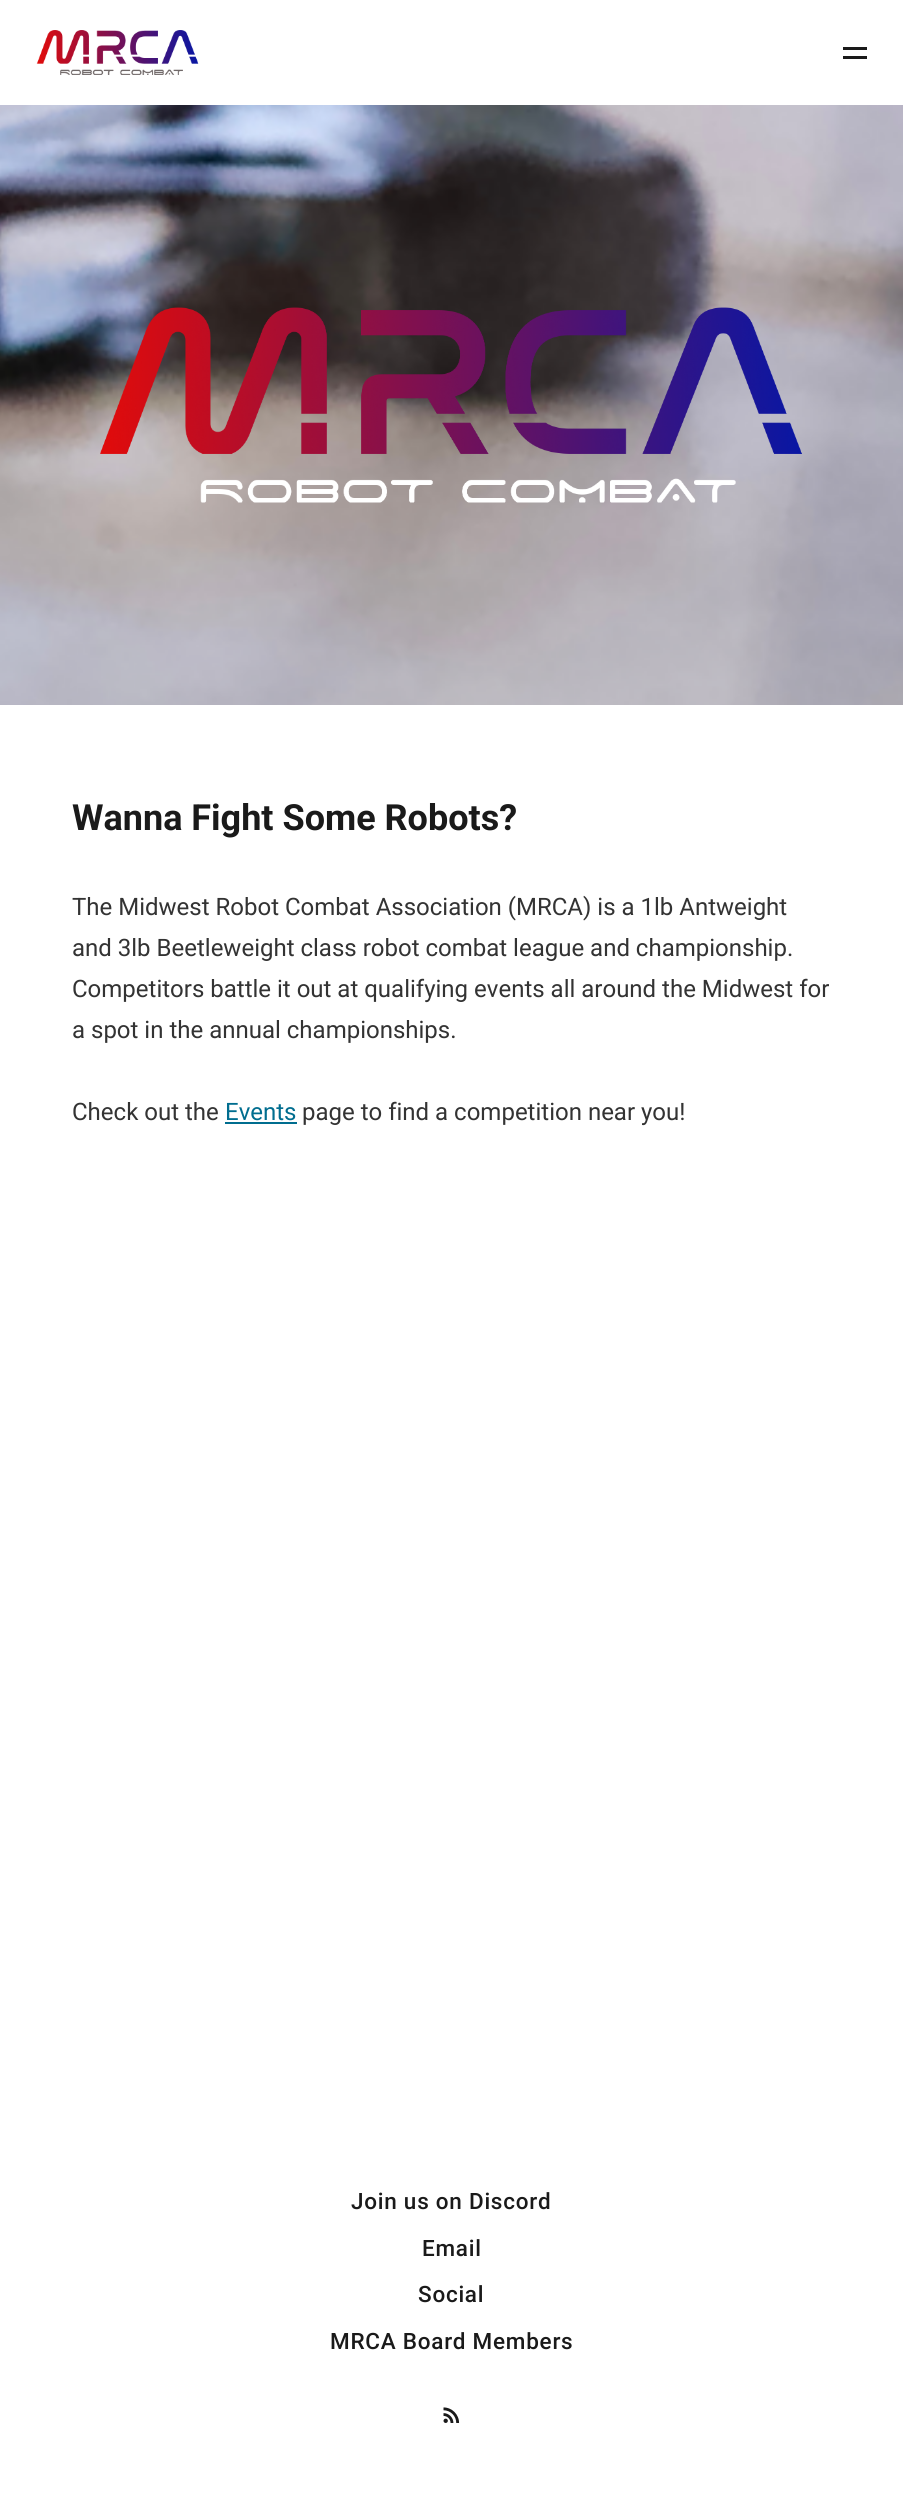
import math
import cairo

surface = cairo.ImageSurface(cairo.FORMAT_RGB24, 903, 2504)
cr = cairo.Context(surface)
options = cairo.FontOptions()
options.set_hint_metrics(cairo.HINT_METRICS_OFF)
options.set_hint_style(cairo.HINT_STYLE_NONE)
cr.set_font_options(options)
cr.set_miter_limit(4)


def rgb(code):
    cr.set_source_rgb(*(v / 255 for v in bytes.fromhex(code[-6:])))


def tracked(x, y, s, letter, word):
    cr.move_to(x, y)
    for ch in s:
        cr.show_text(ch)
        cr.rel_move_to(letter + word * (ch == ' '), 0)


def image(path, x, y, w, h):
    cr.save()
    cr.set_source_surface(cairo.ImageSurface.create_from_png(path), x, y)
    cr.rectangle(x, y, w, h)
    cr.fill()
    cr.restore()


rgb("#ffffff")
cr.paint()
image("img/1.png", 36, 30, 163, 45)
rgb("#1a1a1a")
cr.rectangle(843, 47, 24, 3)
cr.fill()
cr.rectangle(843, 56, 24, 3)
cr.fill()
image("img/2.png", 0, 105, 903, 600)
image("img/3.png", 100, 307, 702, 196)
rgb("#006d8f")
cr.rectangle(225, 1122, 72, 2)
cr.fill()
image("img/4.png", 443, 2407, 17, 16)
cr.select_font_face("Roboto", cairo.FONT_SLANT_NORMAL, cairo.FONT_WEIGHT_BOLD)
cr.set_font_size(36)
rgb("#1a1a1a")
cr.move_to(72, 830)
cr.show_text("Wanna Fight Some Robots?")
cr.select_font_face("Roboto")
cr.set_font_size(24)
rgb("#333333")
for x, y, s in [
    (72, 915, "The Midwest Robot Combat Association (MRCA) is a 1lb Antweight"),
    (72, 956, "and 3lb Beetleweight class robot combat league and championship."),
    (72, 997, "Competitors battle it out at qualifying events all around the Midwest for"),
    (72, 1038, "a spot in the annual championships."),
    (72, 1120, "Check out the"),
]:
    cr.move_to(x, y)
    cr.show_text(s)
rgb("#006d8f")
cr.move_to(225, 1120)
cr.show_text("Events")
rgb("#333333")
cr.move_to(302, 1120)
cr.show_text("page to find a competition near you!")
cr.select_font_face("Roboto Medium")
cr.set_font_size(22.5)
rgb("#1a1a1a")
for x, y, s in [
    (351, 2209, "Join us on Discord"),
    (422, 2256, "Email"),
    (418, 2302, "Social"),
    (330, 2349, "MRCA Board Members"),
]:
    tracked(x, y, s, 0.75, 0)
surface.write_to_png("page.png")
